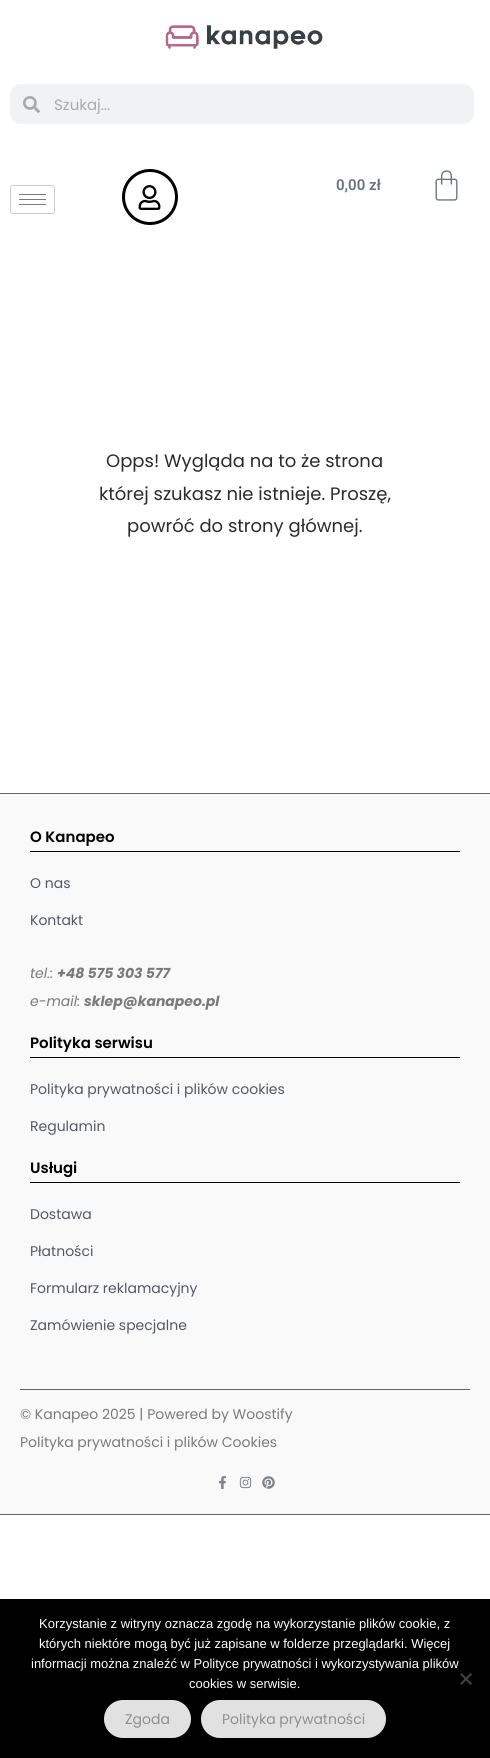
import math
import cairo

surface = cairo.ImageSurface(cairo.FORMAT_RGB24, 490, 1758)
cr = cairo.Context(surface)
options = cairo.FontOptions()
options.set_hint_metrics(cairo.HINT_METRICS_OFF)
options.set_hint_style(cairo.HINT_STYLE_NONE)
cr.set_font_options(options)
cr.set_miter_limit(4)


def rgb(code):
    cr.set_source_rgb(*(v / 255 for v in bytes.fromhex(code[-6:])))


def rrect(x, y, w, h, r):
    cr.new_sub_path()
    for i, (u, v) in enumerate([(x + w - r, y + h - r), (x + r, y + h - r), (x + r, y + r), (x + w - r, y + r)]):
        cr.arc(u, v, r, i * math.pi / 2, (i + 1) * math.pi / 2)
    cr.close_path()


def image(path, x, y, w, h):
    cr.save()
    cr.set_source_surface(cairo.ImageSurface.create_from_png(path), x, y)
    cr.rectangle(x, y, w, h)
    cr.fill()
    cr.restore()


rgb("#ffffff")
cr.paint()
image("img/1.png", 165, 25, 158, 24)
rgb("#f1f2f3")
rrect(10, 84, 464, 40, 11)
cr.fill()
image("img/2.png", 23, 96, 17, 17)
rrect(10.5, 185.5, 44, 28, 2.5)
rgb("#cccccc")
cr.set_line_width(1)
cr.stroke()
for x, y, w, h, color in [
    (19, 194, 27, 1, "#7a7a7a"),
    (19, 199, 27, 1, "#7a7a7a"),
    (19, 204, 27, 1, "#7a7a7a"),
]:
    rgb(color)
    cr.rectangle(x, y, w, h)
    cr.fill()
cr.arc(150, 197, 26.5, 0, 2 * math.pi)
rgb("#000000")
cr.set_line_width(3)
cr.stroke()
image("img/3.png", 138, 185, 23, 25)
image("img/4.png", 435, 170, 23, 31)
for x, y, w, h, color in [
    (0, 794, 490, 720, "#f9f9f9"),
    (0, 793, 490, 1, "#646464"),
    (0, 1514, 490, 1, "#646464"),
    (30, 851, 430, 1, "#000000"),
    (30, 1057, 430, 1, "#000000"),
    (30, 1182, 430, 1, "#000000"),
    (20, 1389, 450, 1, "#646464"),
]:
    rgb(color)
    cr.rectangle(x, y, w, h)
    cr.fill()
image("img/5.png", 219, 1476, 7, 13)
image("img/6.png", 239, 1476, 13, 13)
image("img/7.png", 262, 1476, 13, 13)
rgb("#000000")
cr.rectangle(0, 1599, 490, 159)
cr.fill()
rgb("#404040")
cr.new_path()
cr.move_to(470.5, 1673)
cr.line_to(472, 1674.5)
cr.line_to(461.5, 1685)
cr.line_to(460, 1683.5)
cr.close_path()
cr.fill()
cr.new_path()
cr.move_to(460, 1674.5)
cr.line_to(461.5, 1673)
cr.line_to(472, 1683.5)
cr.line_to(470.5, 1685)
cr.close_path()
cr.fill()
rgb("#e1e1e1")
rrect(104, 1700, 87, 38, 19)
cr.fill()
rrect(201, 1700, 185, 38, 19)
cr.fill()
cr.select_font_face("Poppins")
cr.set_font_size(15)
rgb("#aaaaaa")
cr.move_to(54, 110)
cr.show_text("Szukaj...")
cr.select_font_face("Roboto SemiBold")
rgb("#69727d")
cr.move_to(336, 190)
cr.show_text("0,00 zł")
cr.select_font_face("Poppins")
cr.set_font_size(18)
rgb("#2b2b2b")
for x, y, s in [
    (106, 467, "Opps! Wygląda na to że strona"),
    (99, 500, "której szukasz nie istnieje. Proszę,"),
    (127, 532, "powróć do strony głównej."),
]:
    cr.move_to(x, y)
    cr.show_text(s)
cr.select_font_face("Poppins SemiBold")
cr.set_font_size(15)
rgb("#000000")
cr.move_to(30, 842)
cr.show_text("O Kanapeo")
cr.select_font_face("Poppins")
cr.set_font_size(14)
rgb("#54595f")
cr.move_to(30, 888)
cr.show_text("O nas")
cr.move_to(30, 925)
cr.show_text("Kontakt")
cr.select_font_face("Poppins", cairo.FONT_SLANT_ITALIC)
rgb("#7a7a7a")
cr.move_to(30, 978)
cr.show_text("tel.:")
cr.select_font_face("Poppins", cairo.FONT_SLANT_ITALIC, cairo.FONT_WEIGHT_BOLD)
cr.move_to(57, 978)
cr.show_text("+48 575 303 577")
cr.select_font_face("Poppins", cairo.FONT_SLANT_ITALIC)
cr.move_to(30, 1006)
cr.show_text("e-mail:")
cr.select_font_face("Poppins", cairo.FONT_SLANT_ITALIC, cairo.FONT_WEIGHT_BOLD)
cr.move_to(84, 1006)
cr.show_text("sklep@kanapeo.pl")
cr.select_font_face("Poppins SemiBold")
cr.set_font_size(15)
rgb("#000000")
cr.move_to(30, 1048)
cr.show_text("Polityka serwisu")
cr.select_font_face("Poppins")
cr.set_font_size(14)
rgb("#54595f")
cr.move_to(30, 1094)
cr.show_text("Polityka prywatności i plików cookies")
cr.move_to(30, 1131)
cr.show_text("Regulamin")
cr.select_font_face("Poppins SemiBold")
cr.set_font_size(15)
rgb("#000000")
cr.move_to(30, 1173)
cr.show_text("Usługi")
cr.select_font_face("Poppins")
cr.set_font_size(14)
rgb("#54595f")
for x, y, s in [
    (30, 1219, "Dostawa"),
    (30, 1256, "Płatności"),
    (30, 1293, "Formularz reklamacyjny"),
    (30, 1330, "Zamówienie specjalne"),
]:
    cr.move_to(x, y)
    cr.show_text(s)
rgb("#7a7a7a")
cr.move_to(20, 1419)
cr.show_text("© Kanapeo 2025 | Powered by Woostify")
cr.move_to(20, 1447)
cr.show_text("Polityka prywatności i plików Cookies")
cr.select_font_face("Liberation Sans")
cr.set_font_size(13)
rgb("#ffffff")
for x, y, s in [
    (39, 1628, "Korzystanie z witryny oznacza zgodę na wykorzystanie plików cookie, z"),
    (39, 1648, "których niektóre mogą być już zapisane w folderze przeglądarki. Więcej"),
    (31, 1668, "informacji można znaleźć w Polityce prywatności i wykorzystywania plików"),
    (189, 1688, "cookies w serwisie."),
]:
    cr.move_to(x, y)
    cr.show_text(s)
cr.select_font_face("Poppins")
cr.set_font_size(14)
rgb("#8f8f8f")
cr.move_to(125, 1724)
cr.show_text("Zgoda")
cr.move_to(222, 1724)
cr.show_text("Polityka prywatności")
surface.write_to_png("page.png")
